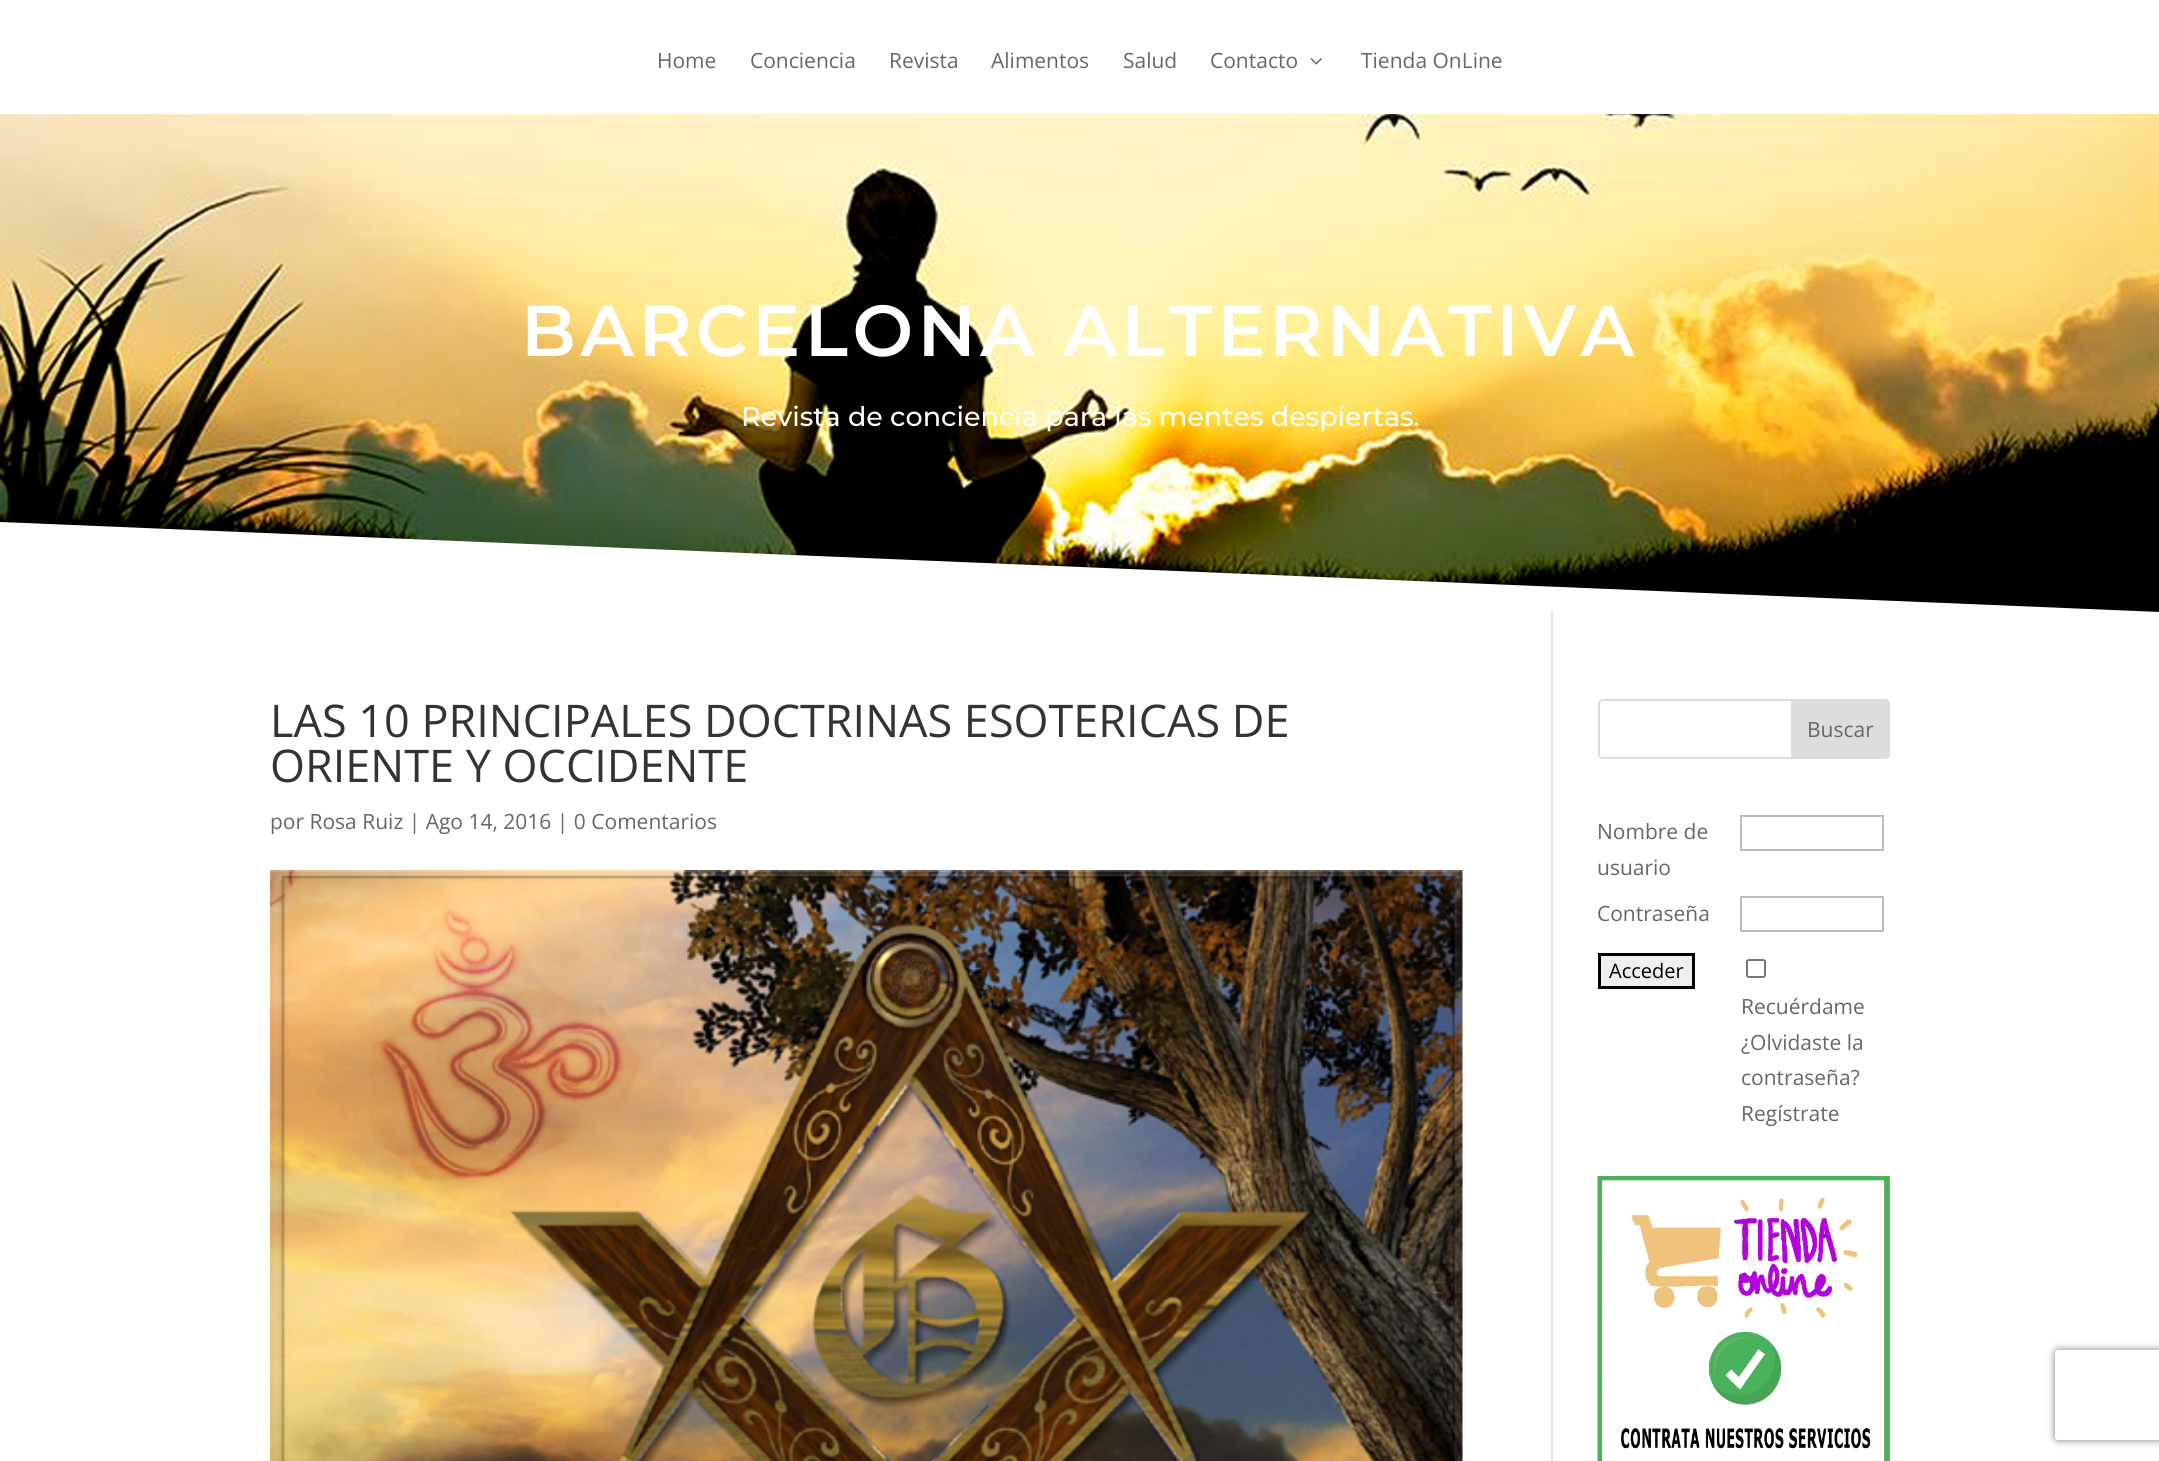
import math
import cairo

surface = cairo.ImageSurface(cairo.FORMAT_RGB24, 2159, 1461)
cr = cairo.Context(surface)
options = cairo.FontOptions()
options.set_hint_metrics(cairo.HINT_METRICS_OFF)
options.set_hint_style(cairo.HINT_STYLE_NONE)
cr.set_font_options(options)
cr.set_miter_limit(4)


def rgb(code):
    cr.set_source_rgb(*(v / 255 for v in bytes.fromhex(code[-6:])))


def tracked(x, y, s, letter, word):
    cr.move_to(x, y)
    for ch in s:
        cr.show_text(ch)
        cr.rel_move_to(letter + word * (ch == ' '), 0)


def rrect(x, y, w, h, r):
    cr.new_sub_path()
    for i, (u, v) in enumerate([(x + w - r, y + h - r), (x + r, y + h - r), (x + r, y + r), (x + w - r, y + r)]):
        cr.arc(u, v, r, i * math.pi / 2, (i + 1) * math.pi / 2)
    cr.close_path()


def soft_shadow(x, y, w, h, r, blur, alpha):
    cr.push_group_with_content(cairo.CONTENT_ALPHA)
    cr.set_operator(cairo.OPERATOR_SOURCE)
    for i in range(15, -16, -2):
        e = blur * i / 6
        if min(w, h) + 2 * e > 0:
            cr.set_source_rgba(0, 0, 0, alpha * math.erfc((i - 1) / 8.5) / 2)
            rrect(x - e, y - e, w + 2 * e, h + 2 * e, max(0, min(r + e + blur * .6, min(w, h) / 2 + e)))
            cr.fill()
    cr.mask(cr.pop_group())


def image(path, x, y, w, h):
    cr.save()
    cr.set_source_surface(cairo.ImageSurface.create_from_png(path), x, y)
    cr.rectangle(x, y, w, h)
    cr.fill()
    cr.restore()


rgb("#ffffff")
cr.paint()
image("img/1.png", 1310, 58, 12, 7)
image("img/2.png", 0, 114, 2159, 498)
rgb("#ffffff")
cr.new_path()
cr.move_to(0, 522)
cr.line_to(0, 612)
cr.line_to(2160, 612)
cr.close_path()
cr.fill()
rgb("#e2e2e2")
cr.rectangle(1551, 612, 2, 849)
cr.fill()
image("img/3.png", 270, 870, 1193, 591)
rrect(1599, 700, 290, 58, 4)
rgb("#dddddd")
cr.stroke()
cr.new_path()
cr.move_to(1792, 700)
cr.line_to(1885, 700)
cr.curve_to(1887, 700, 1889, 702, 1889, 704)
cr.line_to(1889, 754)
cr.curve_to(1889, 756, 1887, 758, 1885, 758)
cr.line_to(1792, 758)
cr.close_path()
cr.fill_preserve()
cr.stroke()
cr.rectangle(1741, 816, 142, 34)
rgb("#bbbbbb")
cr.stroke()
cr.rectangle(1741, 897, 142, 34)
cr.stroke()
rgb("#efefef")
cr.rectangle(1599.5, 954.5, 94, 33)
cr.fill_preserve()
rgb("#000000")
cr.set_line_width(3)
cr.stroke()
rrect(1747, 960, 18, 17, 2)
rgb("#767676")
cr.set_line_width(2)
cr.stroke()
image("img/4.png", 1597, 1176, 293, 285)
cr.save()
cr.set_fill_rule(cairo.FILL_RULE_EVEN_ODD)
cr.new_path()
cr.move_to(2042, 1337)
cr.line_to(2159, 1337)
cr.line_to(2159, 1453)
cr.line_to(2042, 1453)
cr.close_path()
cr.move_to(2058, 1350)
cr.line_to(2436, 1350)
cr.curve_to(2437.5, 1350, 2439, 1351.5, 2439, 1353)
cr.line_to(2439, 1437)
cr.curve_to(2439, 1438.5, 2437.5, 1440, 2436, 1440)
cr.line_to(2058, 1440)
cr.curve_to(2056.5, 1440, 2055, 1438.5, 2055, 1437)
cr.line_to(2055, 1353)
cr.curve_to(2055, 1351.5, 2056.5, 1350, 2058, 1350)
cr.close_path()
cr.clip()
rgb("#808080")
soft_shadow(2055, 1350, 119, 90, 3, 4, 1)
cr.restore()
cr.select_font_face("Open Sans")
cr.set_font_size(21)
rgb("#666666")
for x, y, s in [
    (657, 68, "Home"),
    (750, 68, "Conciencia"),
    (889, 68, "Revista"),
    (991, 68, "Alimentos"),
    (1123, 68, "Salud"),
    (1210, 68, "Contacto"),
    (1361, 68, "Tienda OnLine"),
]:
    cr.move_to(x, y)
    cr.show_text(s)
cr.select_font_face("Montserrat Thin")
cr.set_font_size(72)
rgb("#ffffff")
tracked(521, 356, "BARCELONA ALTERNATIVA", 4.5, 0)
cr.select_font_face("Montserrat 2 Thin")
cr.set_font_size(27)
cr.move_to(741, 426)
cr.show_text("Revista de conciencia para las mentes despiertas.")
cr.select_font_face("Open Sans")
cr.set_font_size(45)
rgb("#333333")
cr.move_to(270, 737)
cr.show_text("LAS 10 PRINCIPALES DOCTRINAS ESOTERICAS DE")
cr.move_to(270, 782)
cr.show_text("ORIENTE Y OCCIDENTE")
cr.set_font_size(21)
rgb("#666666")
for x, y, s in [
    (270, 829, "por Rosa Ruiz | Ago 14, 2016 | 0 Comentarios"),
    (1807, 737, "Buscar"),
    (1597, 839, "Nombre de"),
    (1597, 875, "usuario"),
    (1597, 921, "Contraseña"),
]:
    cr.move_to(x, y)
    cr.show_text(s)
cr.set_font_size(20)
rgb("#000000")
cr.move_to(1609, 978)
cr.show_text("Acceder")
cr.set_font_size(21)
rgb("#666666")
for x, y, s in [
    (1741, 1014, "Recuérdame"),
    (1741, 1050, "¿Olvidaste la"),
    (1741, 1085, "contraseña?"),
    (1741, 1121, "Regístrate"),
]:
    cr.move_to(x, y)
    cr.show_text(s)
surface.write_to_png("page.png")
